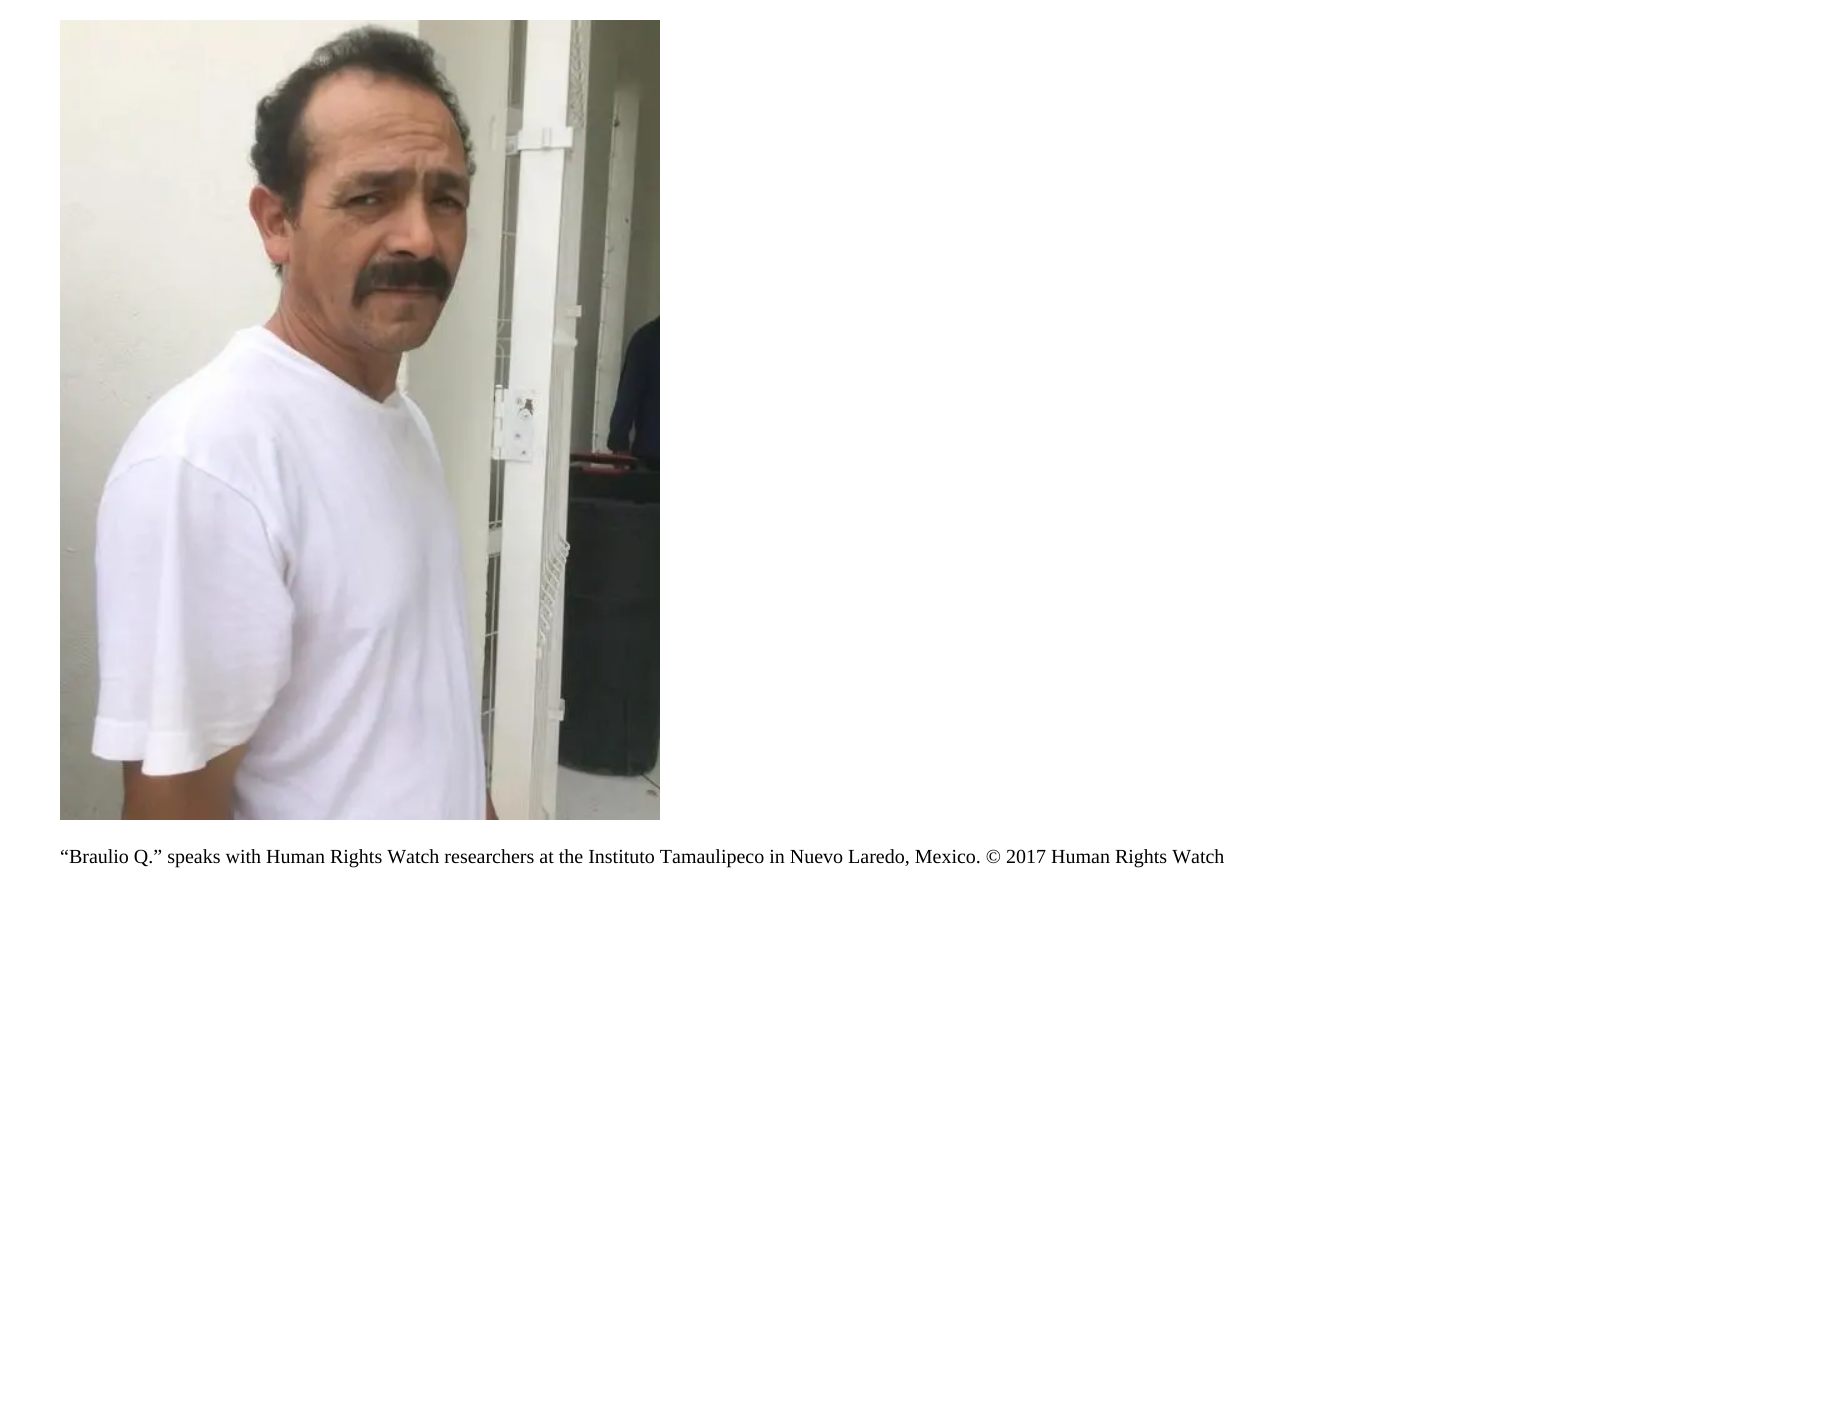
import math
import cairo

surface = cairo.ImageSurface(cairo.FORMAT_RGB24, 1848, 1421)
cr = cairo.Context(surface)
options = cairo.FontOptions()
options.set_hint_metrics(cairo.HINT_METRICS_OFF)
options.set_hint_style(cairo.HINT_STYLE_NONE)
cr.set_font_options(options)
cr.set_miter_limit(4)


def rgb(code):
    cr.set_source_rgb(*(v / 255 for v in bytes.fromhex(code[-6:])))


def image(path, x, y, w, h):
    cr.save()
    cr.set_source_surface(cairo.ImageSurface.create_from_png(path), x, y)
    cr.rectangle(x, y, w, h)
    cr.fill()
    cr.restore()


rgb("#ffffff")
cr.paint()
image("img/1.png", 60, 20, 600, 800)
cr.select_font_face("Liberation Serif")
cr.set_font_size(20)
rgb("#000000")
cr.move_to(60, 863)
cr.show_text("“Braulio Q.” speaks with Human Rights Watch researchers at the Instituto Tamaulipeco in Nuevo Laredo, Mexico. © 2017 Human Rights Watch")
surface.write_to_png("page.png")
